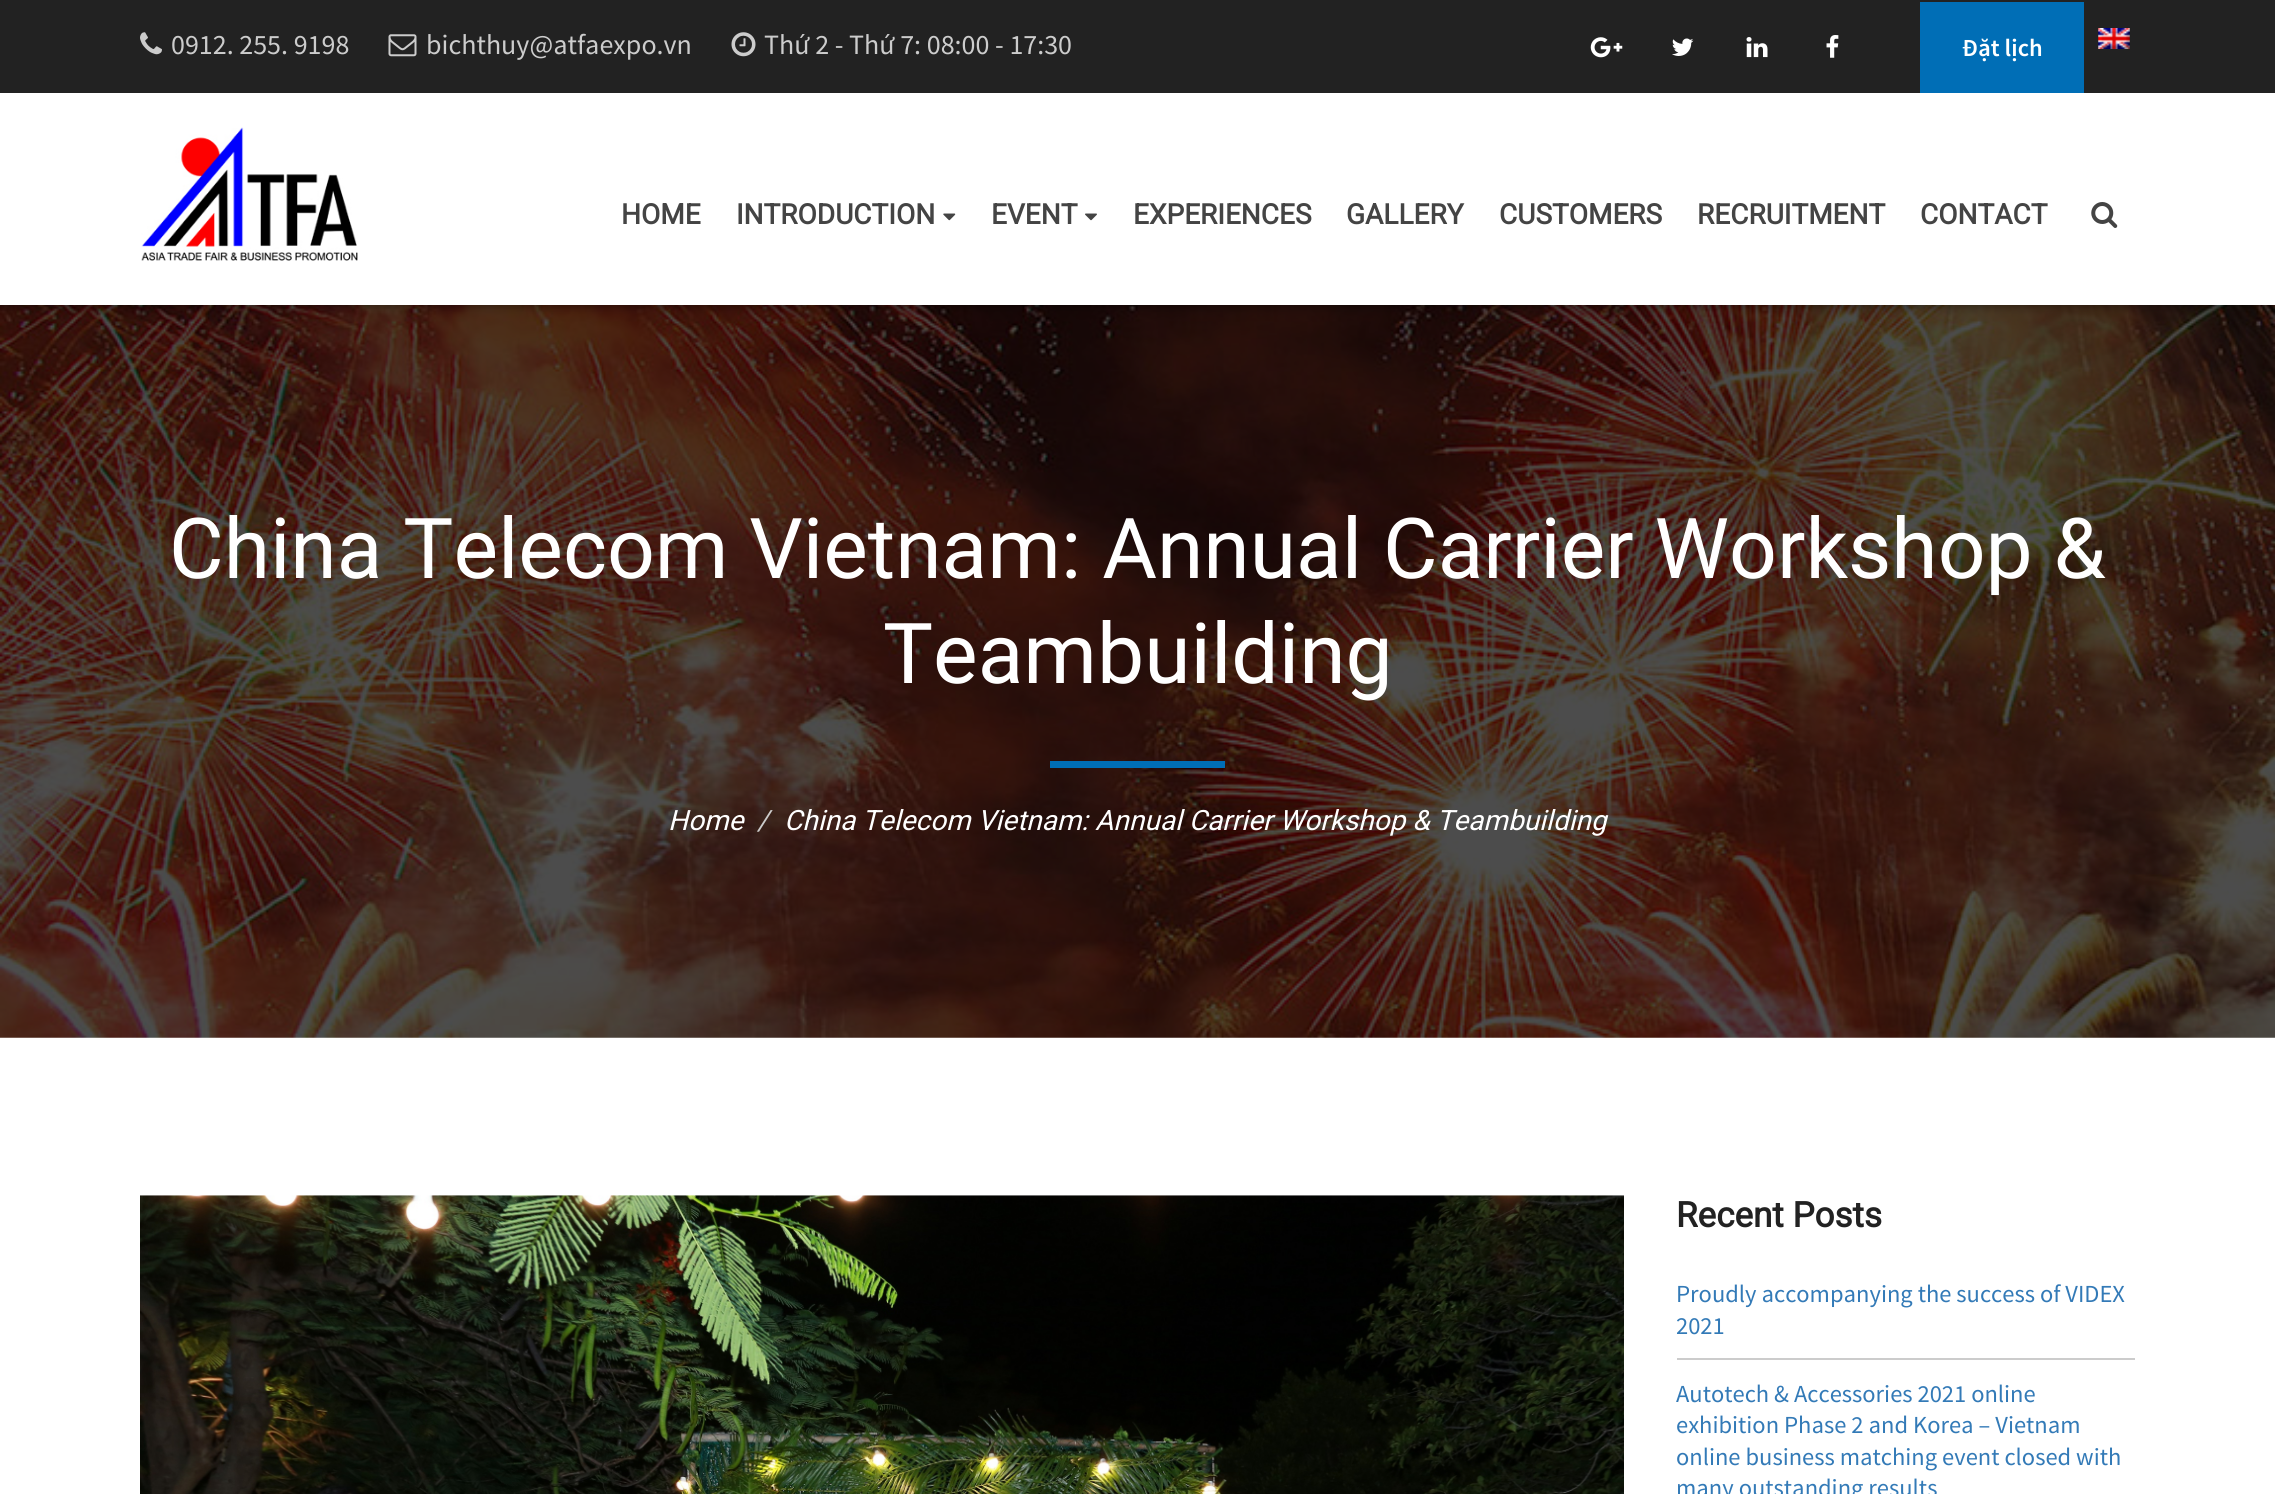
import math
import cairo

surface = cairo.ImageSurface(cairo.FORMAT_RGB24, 2275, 1494)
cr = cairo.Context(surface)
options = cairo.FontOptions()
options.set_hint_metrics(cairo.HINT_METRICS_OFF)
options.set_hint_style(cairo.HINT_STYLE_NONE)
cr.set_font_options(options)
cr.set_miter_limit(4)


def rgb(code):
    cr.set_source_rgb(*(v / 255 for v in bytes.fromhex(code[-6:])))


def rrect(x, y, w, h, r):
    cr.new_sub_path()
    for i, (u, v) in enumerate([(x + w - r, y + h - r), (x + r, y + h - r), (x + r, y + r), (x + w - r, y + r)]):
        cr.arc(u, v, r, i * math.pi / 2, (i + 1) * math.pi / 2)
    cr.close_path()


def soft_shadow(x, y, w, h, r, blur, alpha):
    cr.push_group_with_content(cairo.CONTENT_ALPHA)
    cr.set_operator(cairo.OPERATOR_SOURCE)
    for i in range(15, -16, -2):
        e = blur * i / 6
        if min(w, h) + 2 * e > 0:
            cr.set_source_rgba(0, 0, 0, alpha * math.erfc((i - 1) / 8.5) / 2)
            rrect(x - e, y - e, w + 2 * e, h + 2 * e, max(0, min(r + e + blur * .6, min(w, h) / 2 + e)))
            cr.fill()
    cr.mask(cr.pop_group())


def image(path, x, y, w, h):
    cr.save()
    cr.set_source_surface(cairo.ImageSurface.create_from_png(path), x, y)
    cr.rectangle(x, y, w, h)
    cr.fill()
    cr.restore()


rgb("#ffffff")
cr.paint()
image("img/13.png", 0, 305, 2275, 733)
rgb("#000000")
soft_shadow(0, 0, 2275, 305, 0, 4.5, 0.3)
rgb("#222222")
cr.rectangle(0, 0, 2275, 93)
cr.fill()
image("img/1.png", 140, 32, 22, 23)
image("img/2.png", 388, 34, 29, 23)
image("img/3.png", 731, 32, 25, 25)
image("img/4.png", 1590, 37, 33, 21)
image("img/5.png", 1672, 38, 22, 18)
image("img/6.png", 1746, 37, 22, 21)
image("img/7.png", 1826, 35, 13, 23)
rgb("#006eb6")
cr.rectangle(1920, 2, 164, 91)
cr.fill()
image("img/8.png", 2098, 28, 32, 21)
rgb("#ffffff")
cr.rectangle(0, 93, 2275, 212)
cr.fill()
image("img/9.png", 141, 127, 217, 134)
image("img/10.png", 943, 213, 13, 8)
image("img/11.png", 1085, 213, 12, 8)
image("img/12.png", 2091, 202, 27, 26)
rgb("#006eb6")
cr.rectangle(1050, 761, 175, 7)
cr.fill()
image("img/14.png", 140, 1195, 1484, 299)
rgb("#cccccc")
cr.rectangle(1677, 1358, 458, 2)
cr.fill()
cr.select_font_face("Source Sans Pro")
cr.set_font_size(28)
for x, y, s in [
    (171, 54, "0912. 255. 9198"),
    (426, 54, "bichthuy@atfaexpo.vn"),
    (764, 54, "Thứ 2 - Thứ 7: 08:00 - 17:30"),
]:
    cr.move_to(x, y)
    cr.show_text(s)
cr.select_font_face("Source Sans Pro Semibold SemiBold")
cr.set_font_size(24.5)
rgb("#ffffff")
cr.move_to(1962, 56)
cr.show_text("Đặt lịch")
cr.select_font_face("Roboto", cairo.FONT_SLANT_NORMAL, cairo.FONT_WEIGHT_BOLD)
cr.set_font_size(28)
rgb("#444444")
for x, y, s in [
    (621, 224, "HOME"),
    (736, 224, "INTRODUCTION"),
    (991, 224, "EVENT"),
    (1133, 224, "EXPERIENCES"),
    (1346, 224, "GALLERY"),
    (1499, 224, "CUSTOMERS"),
    (1697, 224, "RECRUITMENT"),
    (1920, 224, "CONTACT"),
]:
    cr.move_to(x, y)
    cr.show_text(s)
cr.select_font_face("Roboto")
cr.set_font_size(84)
rgb("#ffffff")
cr.move_to(169, 578)
cr.show_text("China Telecom Vietnam: Annual Carrier Workshop &")
cr.move_to(883, 683)
cr.show_text("Teambuilding")
cr.select_font_face("Roboto", cairo.FONT_SLANT_ITALIC)
cr.set_font_size(28)
cr.move_to(668, 830)
cr.show_text("Home")
rgb("#cccccc")
cr.move_to(757, 830)
cr.show_text("/")
rgb("#ffffff")
cr.move_to(784, 830)
cr.show_text("China Telecom Vietnam: Annual Carrier Workshop & Teambuilding")
cr.select_font_face("Roboto", cairo.FONT_SLANT_NORMAL, cairo.FONT_WEIGHT_BOLD)
cr.set_font_size(35)
rgb("#222222")
cr.move_to(1676, 1227)
cr.show_text("Recent Posts")
cr.select_font_face("Source Sans Pro")
cr.set_font_size(24.5)
rgb("#337ab7")
for x, y, s in [
    (1676, 1302, "Proudly accompanying the success of VIDEX"),
    (1676, 1334, "2021"),
    (1676, 1402, "Autotech & Accessories 2021 online"),
    (1676, 1433, "exhibition Phase 2 and Korea – Vietnam"),
    (1676, 1465, "online business matching event closed with"),
    (1676, 1496, "many outstanding results"),
]:
    cr.move_to(x, y)
    cr.show_text(s)
surface.write_to_png("page.png")
